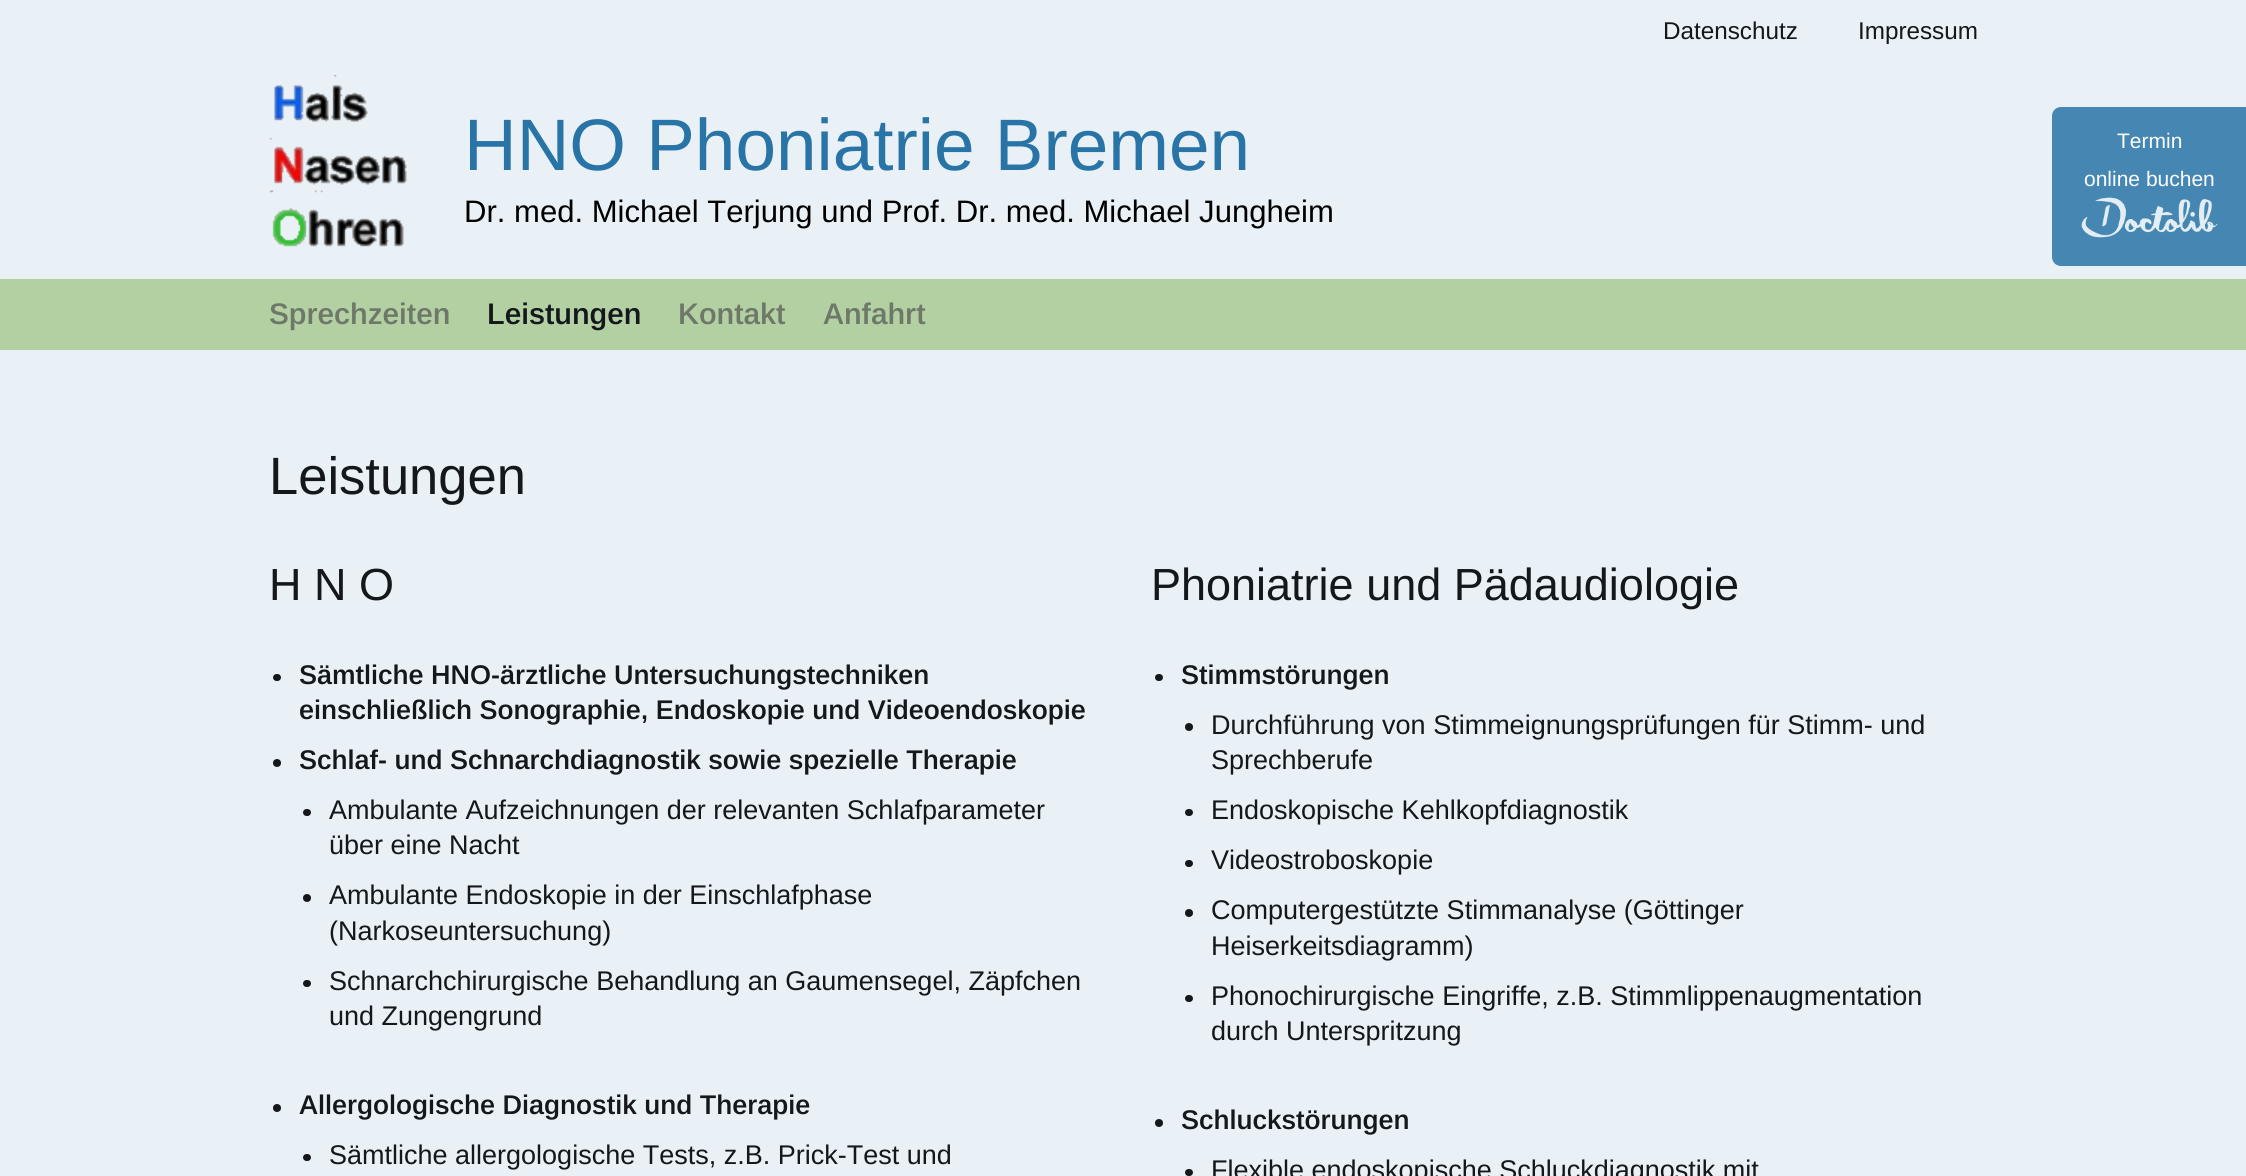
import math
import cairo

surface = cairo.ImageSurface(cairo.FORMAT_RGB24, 2246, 1176)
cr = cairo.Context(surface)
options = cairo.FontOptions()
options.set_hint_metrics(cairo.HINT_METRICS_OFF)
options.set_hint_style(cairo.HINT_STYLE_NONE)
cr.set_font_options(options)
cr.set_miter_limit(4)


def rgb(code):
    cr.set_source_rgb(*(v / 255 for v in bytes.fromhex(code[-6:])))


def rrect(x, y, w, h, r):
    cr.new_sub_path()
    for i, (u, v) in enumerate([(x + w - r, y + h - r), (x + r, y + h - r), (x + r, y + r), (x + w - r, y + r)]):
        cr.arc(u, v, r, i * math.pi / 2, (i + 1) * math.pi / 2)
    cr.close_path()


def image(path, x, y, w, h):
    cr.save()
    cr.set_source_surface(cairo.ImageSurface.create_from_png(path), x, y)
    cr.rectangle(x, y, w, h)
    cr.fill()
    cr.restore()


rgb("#e9f1f6")
cr.paint()
image("img/1.png", 269, 75, 138, 172)
rgb("#b3d0a2")
cr.rectangle(0, 279, 2246, 71)
cr.fill()
rgb("#4587b2")
cr.new_path()
cr.move_to(2061, 107)
cr.line_to(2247, 107)
cr.line_to(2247, 266)
cr.line_to(2061, 266)
cr.curve_to(2056, 266, 2052, 262, 2052, 257)
cr.line_to(2052, 116)
cr.curve_to(2052, 111, 2056, 107, 2061, 107)
cr.close_path()
cr.fill()
image("img/2.png", 2081, 197, 137, 41)
rgb("#14171c")
rrect(273, 674, 8, 7, 3.5)
cr.fill()
cr.arc(277, 763, 4, 0, 2 * math.pi)
cr.fill()
rrect(303, 809, 8, 7, 3.5)
cr.fill()
cr.arc(307, 898, 4, 0, 2 * math.pi)
cr.fill()
rrect(303, 980, 8, 7, 3.5)
cr.fill()
cr.arc(277, 1108, 4, 0, 2 * math.pi)
cr.fill()
rrect(303, 1154, 8, 7, 3.5)
cr.fill()
rrect(1155, 674, 8, 7, 3.5)
cr.fill()
cr.arc(1189, 727, 4, 0, 2 * math.pi)
cr.fill()
rrect(1185, 809, 8, 7, 3.5)
cr.fill()
rrect(1185, 860, 8, 7, 3.5)
cr.fill()
cr.arc(1189, 913, 4, 0, 2 * math.pi)
cr.fill()
rrect(1185, 995, 8, 7, 3.5)
cr.fill()
cr.arc(1159, 1123, 4, 0, 2 * math.pi)
cr.fill()
rrect(1185, 1169, 8, 7, 3.5)
cr.fill()
cr.select_font_face("Arimo")
cr.set_font_size(24.25)
cr.move_to(1663, 39)
cr.show_text("Datenschutz")
cr.move_to(1858, 39)
cr.show_text("Impressum")
cr.set_font_size(72.9)
rgb("#2874a6")
cr.move_to(464, 170)
cr.show_text("HNO Phoniatrie Bremen")
cr.set_font_size(31.05)
rgb("#000000")
cr.move_to(464, 222)
cr.show_text("Dr. med. Michael Terjung und Prof. Dr. med. Michael Jungheim")
cr.select_font_face("Arimo SemiBold")
cr.set_font_size(29.75)
rgb("#6e7869")
cr.move_to(269, 324)
cr.show_text("Sprechzeiten")
rgb("#14171c")
cr.move_to(487, 324)
cr.show_text("Leistungen")
rgb("#6e7869")
cr.move_to(678, 324)
cr.show_text("Kontakt")
cr.move_to(823, 324)
cr.show_text("Anfahrt")
cr.select_font_face("Arimo")
cr.set_font_size(21)
rgb("#fcfdfe")
cr.move_to(2117, 148)
cr.show_text("Termin")
cr.move_to(2084, 186)
cr.show_text("online buchen")
cr.set_font_size(45)
rgb("#14171c")
cr.move_to(269, 600)
cr.show_text("H N O")
cr.select_font_face("Arimo SemiBold")
cr.set_font_size(27)
for x, y, s in [
    (299, 684, "Sämtliche HNO-ärztliche Untersuchungstechniken"),
    (299, 719, "einschließlich Sonographie, Endoskopie und Videoendoskopie"),
    (299, 769, "Schlaf- und Schnarchdiagnostik sowie spezielle Therapie"),
]:
    cr.move_to(x, y)
    cr.show_text(s)
cr.select_font_face("Arimo")
for x, y, s in [
    (329, 819, "Ambulante Aufzeichnungen der relevanten Schlafparameter"),
    (329, 854, "über eine Nacht"),
    (329, 904, "Ambulante Endoskopie in der Einschlafphase"),
    (329, 940, "(Narkoseuntersuchung)"),
    (329, 990, "Schnarchchirurgische Behandlung an Gaumensegel, Zäpfchen"),
    (329, 1025, "und Zungengrund"),
]:
    cr.move_to(x, y)
    cr.show_text(s)
cr.select_font_face("Arimo SemiBold")
cr.move_to(299, 1114)
cr.show_text("Allergologische Diagnostik und Therapie")
cr.select_font_face("Arimo")
cr.move_to(329, 1164)
cr.show_text("Sämtliche allergologische Tests, z.B. Prick-Test und")
cr.set_font_size(45)
cr.move_to(1151, 600)
cr.show_text("Phoniatrie und Pädaudiologie")
cr.select_font_face("Arimo SemiBold")
cr.set_font_size(27)
cr.move_to(1181, 684)
cr.show_text("Stimmstörungen")
cr.select_font_face("Arimo")
for x, y, s in [
    (1211, 734, "Durchführung von Stimmeignungsprüfungen für Stimm- und"),
    (1211, 769, "Sprechberufe"),
    (1211, 819, "Endoskopische Kehlkopfdiagnostik"),
    (1211, 869, "Videostroboskopie"),
    (1211, 919, "Computergestützte Stimmanalyse (Göttinger"),
    (1211, 955, "Heiserkeitsdiagramm)"),
    (1211, 1005, "Phonochirurgische Eingriffe, z.B. Stimmlippenaugmentation"),
    (1211, 1040, "durch Unterspritzung"),
]:
    cr.move_to(x, y)
    cr.show_text(s)
cr.select_font_face("Arimo SemiBold")
cr.move_to(1181, 1129)
cr.show_text("Schluckstörungen")
cr.select_font_face("Arimo")
cr.move_to(1211, 1179)
cr.show_text("Flexible endoskopische Schluckdiagnostik mit")
cr.set_font_size(52.5)
cr.move_to(269, 494)
cr.show_text("Leistungen")
surface.write_to_png("page.png")
